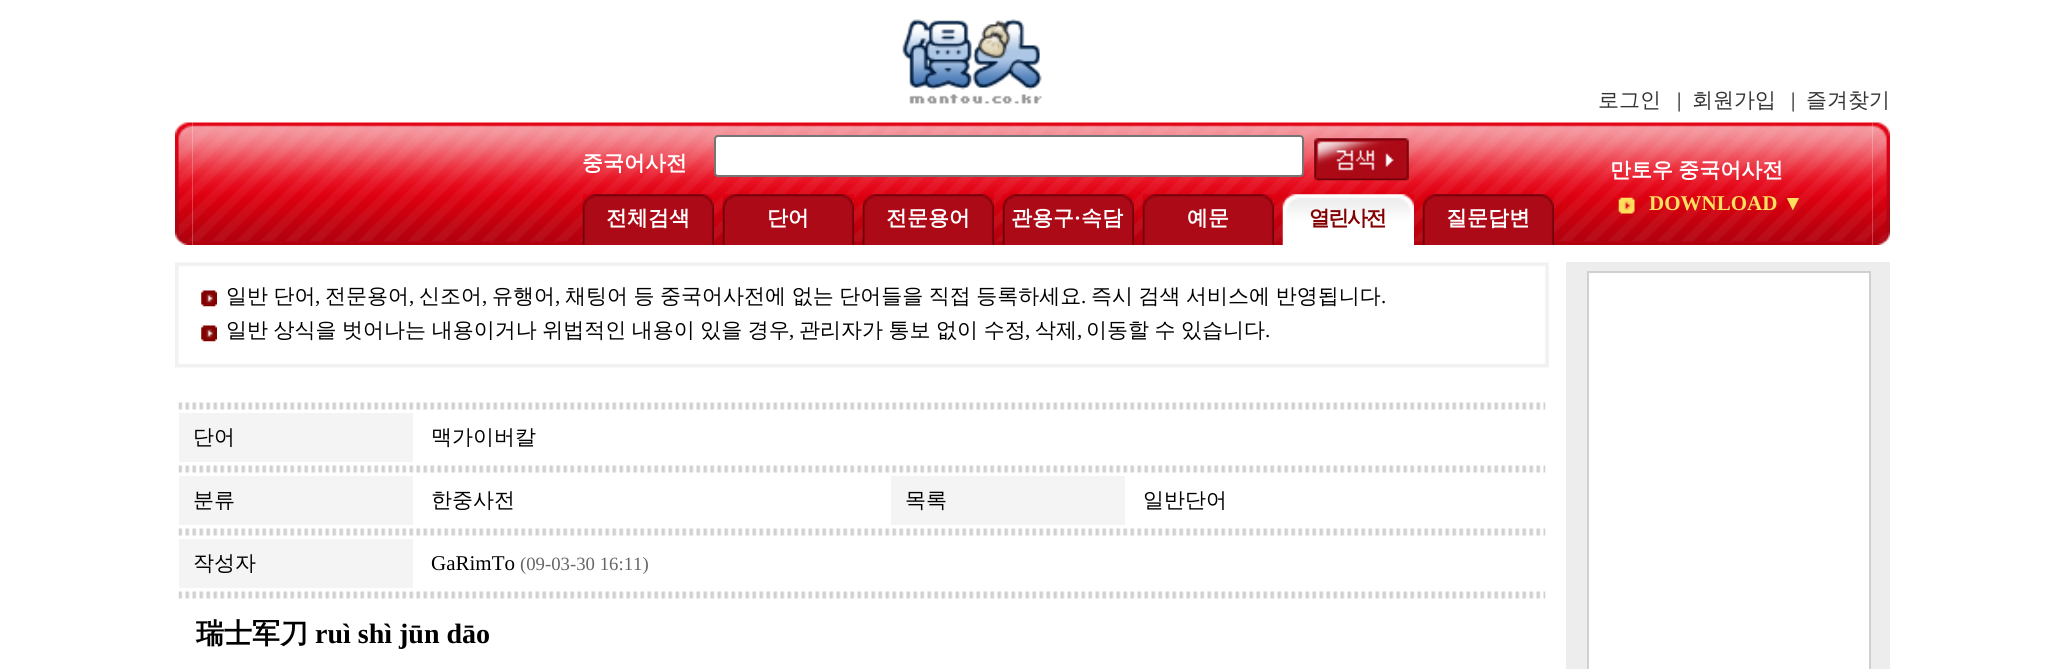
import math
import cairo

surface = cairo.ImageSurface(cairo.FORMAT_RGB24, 2065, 669)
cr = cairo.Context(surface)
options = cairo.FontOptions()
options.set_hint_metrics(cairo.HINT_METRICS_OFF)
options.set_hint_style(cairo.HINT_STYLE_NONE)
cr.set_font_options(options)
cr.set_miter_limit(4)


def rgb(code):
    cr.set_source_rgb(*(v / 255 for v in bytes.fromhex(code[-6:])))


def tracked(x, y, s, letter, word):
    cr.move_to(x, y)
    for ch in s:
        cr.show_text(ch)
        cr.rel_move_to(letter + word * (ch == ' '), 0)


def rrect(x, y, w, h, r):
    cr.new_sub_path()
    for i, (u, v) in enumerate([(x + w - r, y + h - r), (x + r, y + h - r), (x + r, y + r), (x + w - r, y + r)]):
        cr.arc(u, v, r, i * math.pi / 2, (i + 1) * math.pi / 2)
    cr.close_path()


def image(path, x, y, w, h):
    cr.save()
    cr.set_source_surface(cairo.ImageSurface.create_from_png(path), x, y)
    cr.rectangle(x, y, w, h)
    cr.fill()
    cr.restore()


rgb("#ffffff")
cr.paint()
image("img/1.png", 902, 19, 140, 85)
image("img/3.png", 192, 122, 1681, 123)
image("img/2.png", 175, 122, 18, 123)
rgb("#ffffff")
rrect(715, 136, 588, 40, 3)
cr.fill_preserve()
rgb("#767676")
cr.stroke()
image("img/4.png", 1314, 138, 95, 43)
image("img/5.png", 582, 194, 132, 51)
image("img/6.png", 722, 194, 132, 51)
image("img/7.png", 862, 194, 132, 51)
image("img/8.png", 1002, 194, 132, 51)
image("img/9.png", 1142, 194, 132, 51)
image("img/10.png", 1282, 194, 132, 51)
image("img/11.png", 1422, 194, 132, 51)
image("img/12.png", 1618, 197, 17, 17)
image("img/13.png", 1872, 122, 18, 123)
image("img/14.png", 175, 262, 1374, 9)
image("img/15.png", 175, 271, 1374, 88)
image("img/16.png", 201, 290, 16, 17)
image("img/16.png", 201, 325, 16, 17)
image("img/17.png", 175, 359, 1374, 9)
image("img/18.png", 178, 402, 1368, 8)
rgb("#f4f4f4")
cr.rectangle(179, 413, 234, 49)
cr.fill()
image("img/18.png", 178, 465, 1368, 8)
cr.rectangle(179, 476, 234, 49)
cr.fill()
cr.rectangle(891, 476, 234, 49)
cr.fill()
image("img/18.png", 178, 528, 1368, 8)
cr.rectangle(179, 539, 234, 49)
cr.fill()
image("img/18.png", 178, 591, 1368, 8)
for x, y, w, h, color in [
    (1566, 262, 324, 407, "#ededed"),
    (1587, 271, 284, 398, "#d0d0d0"),
    (1589, 273, 280, 396, "#ffffff"),
]:
    rgb(color)
    cr.rectangle(x, y, w, h)
    cr.fill()
cr.select_font_face("WenQuanYi Zen Hei Medium")
cr.set_font_size(21)
rgb("#333333")
cr.move_to(1598, 107)
cr.show_text("로그인")
cr.select_font_face("Liberation Serif")
rgb("#000000")
cr.move_to(1677, 107)
cr.show_text("|")
cr.select_font_face("WenQuanYi Zen Hei Medium")
rgb("#333333")
cr.move_to(1692, 107)
cr.show_text("회원가입")
cr.select_font_face("Liberation Serif")
rgb("#000000")
cr.move_to(1791, 107)
cr.show_text("|")
cr.select_font_face("WenQuanYi Zen Hei Medium")
rgb("#333333")
cr.move_to(1806, 107)
cr.show_text("즐겨찾기")
cr.select_font_face("WenQuanYi Zen Hei", cairo.FONT_SLANT_NORMAL, cairo.FONT_WEIGHT_BOLD)
rgb("#ffffff")
for x, y, s in [
    (582, 170, "중국어사전"),
    (606, 225, "전체검색"),
    (767, 225, "단어"),
    (886, 225, "전문용어"),
    (1011, 225, "관용구"),
]:
    cr.move_to(x, y)
    cr.show_text(s)
cr.select_font_face("Liberation Serif", cairo.FONT_SLANT_NORMAL, cairo.FONT_WEIGHT_BOLD)
cr.move_to(1074, 225)
cr.show_text("·")
cr.select_font_face("WenQuanYi Zen Hei", cairo.FONT_SLANT_NORMAL, cairo.FONT_WEIGHT_BOLD)
cr.move_to(1081, 225)
cr.show_text("속담")
cr.move_to(1187, 225)
cr.show_text("예문")
rgb("#830000")
tracked(1309, 225, "열린사전", -2, 0)
rgb("#ffffff")
cr.move_to(1446, 225)
cr.show_text("질문답변")
tracked(1610, 177, "만토우 중국어사전", 0, -1)
cr.select_font_face("Liberation Serif", cairo.FONT_SLANT_NORMAL, cairo.FONT_WEIGHT_BOLD)
rgb("#ffdf5e")
cr.move_to(1649, 210)
cr.show_text("DOWNLOAD ▼")
cr.select_font_face("WenQuanYi Zen Hei Medium")
rgb("#000000")
tracked(226, 303, "일반 단어", 0, -0.75)
cr.select_font_face("Liberation Serif")
cr.move_to(315, 303)
cr.show_text(",")
cr.select_font_face("WenQuanYi Zen Hei Medium")
cr.move_to(325, 303)
cr.show_text("전문용어")
cr.select_font_face("Liberation Serif")
cr.move_to(409, 303)
cr.show_text(",")
cr.select_font_face("WenQuanYi Zen Hei Medium")
cr.move_to(419, 303)
cr.show_text("신조어")
cr.select_font_face("Liberation Serif")
cr.move_to(482, 303)
cr.show_text(",")
cr.select_font_face("WenQuanYi Zen Hei Medium")
cr.move_to(492, 303)
cr.show_text("유행어")
cr.select_font_face("Liberation Serif")
cr.move_to(555, 303)
cr.show_text(",")
cr.select_font_face("WenQuanYi Zen Hei Medium")
tracked(565, 303, "채팅어 등 중국어사전에 없는 단어들을 직접 등록하세요", 0, -0.75)
cr.select_font_face("Liberation Serif")
cr.move_to(1081, 303)
cr.show_text(".")
cr.select_font_face("WenQuanYi Zen Hei Medium")
tracked(1091, 303, "즉시 검색 서비스에 반영됩니다", 0, -0.75)
cr.select_font_face("Liberation Serif")
cr.move_to(1381, 303)
cr.show_text(".")
cr.select_font_face("WenQuanYi Zen Hei Medium")
tracked(226, 337, "일반 상식을 벗어나는 내용이거나 위법적인 내용이 있을 경우", 0, -0.75)
cr.select_font_face("Liberation Serif")
cr.move_to(789, 337)
cr.show_text(",")
cr.select_font_face("WenQuanYi Zen Hei Medium")
tracked(799, 337, "관리자가 통보 없이 수정", 0, -0.75)
cr.select_font_face("Liberation Serif")
cr.move_to(1025, 337)
cr.show_text(",")
cr.select_font_face("WenQuanYi Zen Hei Medium")
cr.move_to(1035, 337)
cr.show_text("삭제")
cr.select_font_face("Liberation Serif")
cr.move_to(1077, 337)
cr.show_text(",")
cr.select_font_face("WenQuanYi Zen Hei Medium")
tracked(1086, 337, "이동할 수 있습니다", 0, -0.75)
cr.select_font_face("Liberation Serif")
cr.move_to(1265, 337)
cr.show_text(".")
cr.select_font_face("WenQuanYi Zen Hei Medium")
for x, y, s in [
    (193, 444, "단어"),
    (431, 444, "맥가이버칼"),
    (193, 507, "분류"),
    (431, 507, "한중사전"),
    (905, 507, "목록"),
    (1143, 507, "일반단어"),
    (193, 570, "작성자"),
]:
    cr.move_to(x, y)
    cr.show_text(s)
cr.select_font_face("Liberation Serif")
cr.move_to(431, 570)
cr.show_text("GaRimTo")
cr.set_font_size(18.75)
rgb("#666666")
cr.move_to(520, 570)
cr.show_text("(09-03-30 16:11)")
cr.select_font_face("WenQuanYi Zen Hei", cairo.FONT_SLANT_NORMAL, cairo.FONT_WEIGHT_BOLD)
cr.set_font_size(28)
rgb("#000000")
cr.move_to(196, 643)
cr.show_text("瑞士军刀")
cr.select_font_face("Liberation Serif", cairo.FONT_SLANT_NORMAL, cairo.FONT_WEIGHT_BOLD)
cr.move_to(315, 643)
cr.show_text("ruì shì jūn dāo")
surface.write_to_png("page.png")
